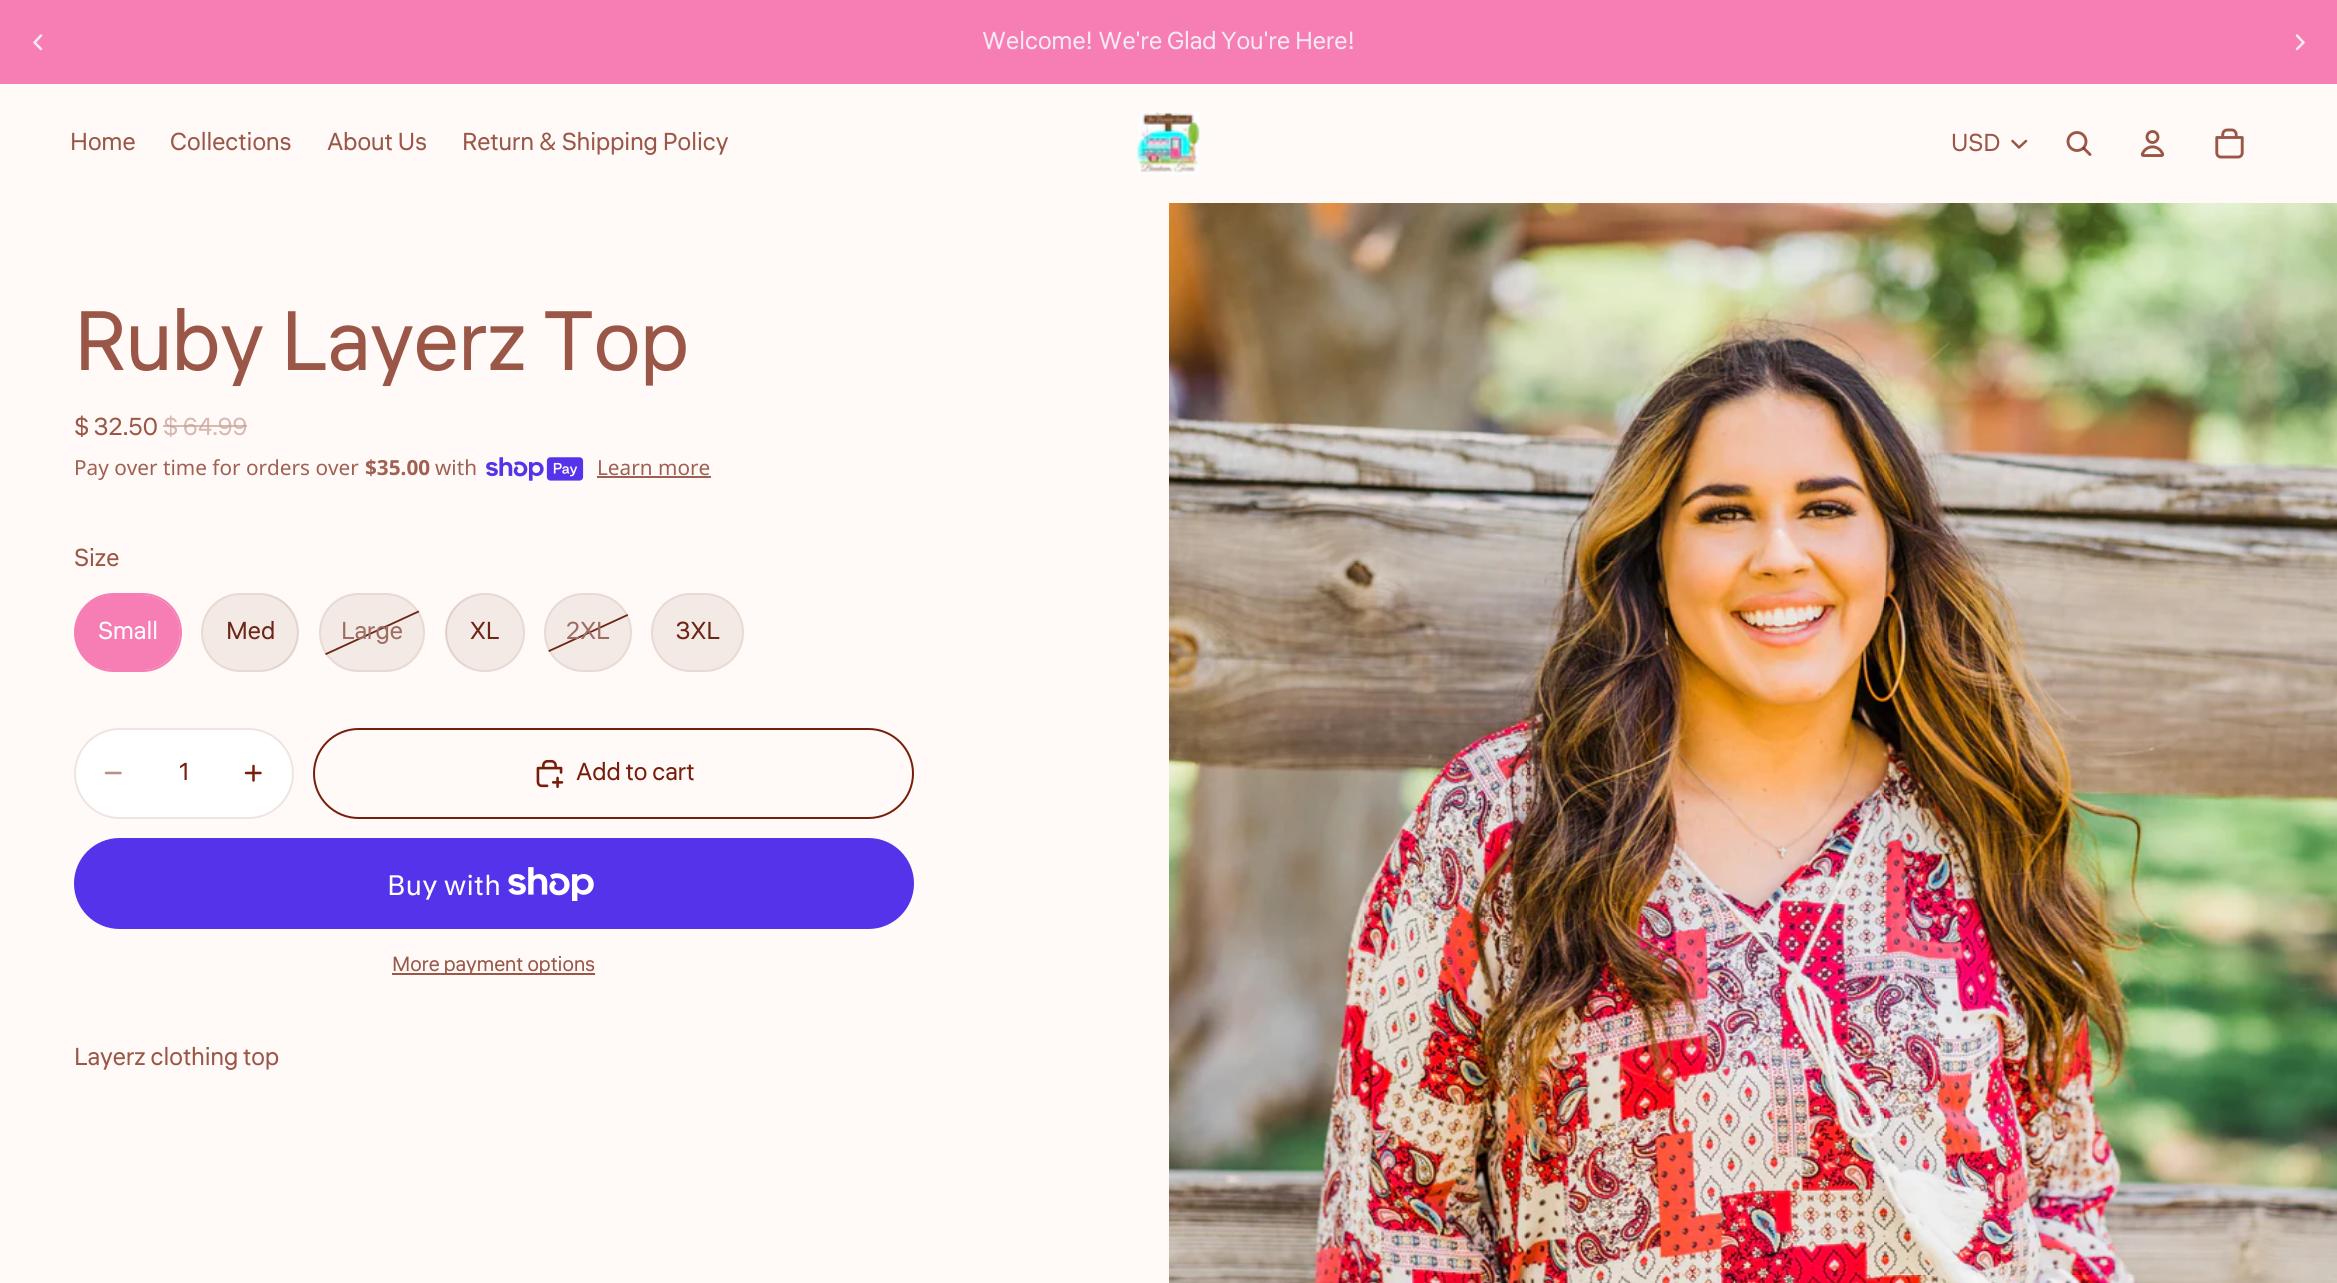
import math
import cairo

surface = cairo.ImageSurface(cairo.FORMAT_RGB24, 2337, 1283)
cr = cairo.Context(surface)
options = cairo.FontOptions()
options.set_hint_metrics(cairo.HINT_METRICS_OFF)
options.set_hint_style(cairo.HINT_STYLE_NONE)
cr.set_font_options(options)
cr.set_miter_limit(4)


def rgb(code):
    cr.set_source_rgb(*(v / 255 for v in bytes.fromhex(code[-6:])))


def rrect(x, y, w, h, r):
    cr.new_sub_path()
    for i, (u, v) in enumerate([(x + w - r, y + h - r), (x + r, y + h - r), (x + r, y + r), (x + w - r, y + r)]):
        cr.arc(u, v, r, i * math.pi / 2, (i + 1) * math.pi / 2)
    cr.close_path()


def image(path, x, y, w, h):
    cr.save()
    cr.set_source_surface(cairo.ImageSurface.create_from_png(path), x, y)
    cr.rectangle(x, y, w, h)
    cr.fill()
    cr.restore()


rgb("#fffaf7")
cr.paint()
rgb("#f67eb4")
cr.rectangle(0, 0, 2337, 84)
cr.fill()
cr.new_path()
cr.move_to(41, 35.5)
cr.line_to(34.5, 42.5)
cr.line_to(41, 49)
rgb("#f5eaf1")
cr.set_line_width(2.5)
cr.set_line_cap(cairo.LINE_CAP_ROUND)
cr.set_line_join(cairo.LINE_JOIN_ROUND)
cr.stroke()
cr.new_path()
cr.move_to(2297, 35.5)
cr.line_to(2303.5, 42.5)
cr.line_to(2297, 49)
cr.stroke()
image("img/1.png", 1137, 112, 64, 63)
cr.new_path()
cr.move_to(2026, 141)
cr.line_to(2019, 147.5)
cr.line_to(2012.5, 141)
rgb("#9a5748")
cr.stroke()
cr.arc(2077, 141.5, 9, 0, 2 * math.pi)
cr.set_line_width(2.9)
cr.set_line_cap(cairo.LINE_CAP_BUTT)
cr.set_line_join(cairo.LINE_JOIN_MITER)
cr.stroke()
cr.new_path()
cr.move_to(2084, 148.5)
cr.line_to(2090, 154.5)
cr.set_source_rgba(0.463, 0.118, 0.043, 0.74)
cr.set_line_cap(cairo.LINE_CAP_ROUND)
cr.set_line_join(cairo.LINE_JOIN_ROUND)
cr.stroke()
image("img/2.png", 2140, 130, 25, 27)
image("img/3.png", 2215, 128, 29, 31)
image("img/4.png", 486, 457, 98, 24)
rgb("#9f6052")
cr.rectangle(597, 476, 114, 2)
cr.fill()
rgb("#f3e9e5")
rrect(75, 594, 106, 77, 38.5)
cr.fill_preserve()
rgb("#f67eb4")
cr.set_line_width(2)
cr.set_line_cap(cairo.LINE_CAP_BUTT)
cr.set_line_join(cairo.LINE_JOIN_MITER)
cr.stroke()
cr.save()
rrect(75, 595, 105, 75, 37.5)
cr.clip()
rrect(75, 593, 105, 79, 39.5)
cr.fill()
cr.restore()
cr.new_path()
cr.move_to(112, 595)
cr.curve_to(105, 595, 98, 597, 92, 601)
cr.curve_to(60, 622, 76, 670, 114, 670)
cr.curve_to(93, 670, 76, 653, 76, 632)
cr.curve_to(76, 612, 93, 595, 114, 595)
cr.close_path()
cr.fill()
rgb("#f3e9e5")
rrect(201, 593, 98, 79, 39.5)
cr.fill()
rrect(202, 594, 96, 77, 38.5)
cr.set_source_rgba(0.427, 0.145, 0.078, 0.08)
cr.stroke()
cr.new_path()
cr.move_to(260, 670)
cr.curve_to(310, 670, 310, 595, 260, 595)
cr.curve_to(280, 595, 297, 612, 297, 632)
cr.curve_to(297, 653, 280, 670, 260, 670)
cr.close_path()
cr.fill()
rgb("#f3e9e5")
rrect(319, 593, 106, 79, 39.5)
cr.fill()
cr.save()
rrect(319, 593, 106, 79, 39.5)
cr.clip()
cr.new_path()
cr.move_to(454.5, 595)
cr.line_to(289, 671)
rgb("#e8d9d4")
cr.set_line_width(1.8)
cr.stroke()
cr.new_path()
cr.move_to(454.5, 595)
cr.line_to(289, 671)
rgb("#6d2514")
cr.stroke()
cr.restore()
rrect(320, 594, 104, 77, 38.5)
cr.set_source_rgba(0.427, 0.145, 0.078, 0.08)
cr.stroke()
rgb("#f3e9e5")
rrect(445, 593, 80, 79, 39.5)
cr.fill()
rrect(446, 594, 78, 77, 38.5)
cr.set_source_rgba(0.427, 0.145, 0.078, 0.08)
cr.stroke()
cr.new_path()
cr.move_to(484, 595)
cr.curve_to(476, 595, 469, 597, 463, 601)
cr.curve_to(431, 622, 447, 670, 484, 670)
cr.curve_to(464, 670, 447, 653, 447, 632)
cr.curve_to(447, 612, 464, 595, 484, 595)
cr.close_path()
cr.fill()
rgb("#f3e9e5")
rrect(544, 593, 88, 79, 39.5)
cr.fill()
cr.save()
rrect(544, 593, 88, 79, 39.5)
cr.clip()
cr.new_path()
cr.move_to(671, 595)
cr.line_to(505.5, 671)
cr.set_source_rgba(0.427, 0.145, 0.078, 0.08)
cr.set_line_width(1.8)
cr.stroke()
cr.new_path()
cr.move_to(671, 595)
cr.line_to(505.5, 671)
rgb("#6d2514")
cr.stroke()
cr.restore()
rrect(545, 594, 86, 77, 38.5)
cr.set_source_rgba(0.427, 0.145, 0.078, 0.08)
cr.stroke()
rgb("#f3e9e5")
rrect(651, 593, 93, 79, 39.5)
cr.fill()
rrect(652, 594, 91, 77, 38.5)
cr.set_source_rgba(0.427, 0.145, 0.078, 0.08)
cr.stroke()
rgb("#ffffff")
rrect(74, 728, 220, 91, 45.5)
cr.fill()
rrect(75, 729, 218, 89, 44.5)
cr.set_source_rgba(0.463, 0.118, 0.043, 0.12)
cr.stroke()
cr.new_path()
cr.move_to(106, 773)
cr.line_to(120.5, 773)
rgb("#bb8f85")
cr.set_line_width(2.5)
cr.set_line_cap(cairo.LINE_CAP_ROUND)
cr.stroke()
cr.new_path()
cr.move_to(246, 773)
cr.line_to(260.5, 773)
cr.move_to(253.5, 766)
cr.line_to(253.5, 780.5)
rgb("#761e0b")
cr.stroke()
rrect(314, 729, 599, 89, 44.5)
cr.set_line_width(2)
cr.set_line_cap(cairo.LINE_CAP_BUTT)
cr.stroke()
image("img/5.png", 536, 759, 28, 29)
rgb("#5433eb")
rrect(74, 838, 840, 91, 45.5)
cr.fill()
image("img/6.png", 508, 867, 86, 34)
rgb("#9a5748")
cr.rectangle(392, 973, 203, 2)
cr.fill()
image("img/7.png", 1169, 203, 1168, 1080)
cr.select_font_face("Liter")
cr.set_font_size(24.5)
rgb("#f5eaf1")
cr.move_to(982, 49)
cr.show_text("Welcome! We're Glad You're Here!")
rgb("#9a5748")
for x, y, s in [
    (70, 150, "Home"),
    (170, 150, "Collections"),
    (327, 150, "About Us"),
    (462, 150, "Return & Shipping Policy"),
    (1951, 151, "USD"),
]:
    cr.move_to(x, y)
    cr.show_text(s)
cr.set_font_size(84)
cr.move_to(74, 370)
cr.show_text("Ruby Layerz Top")
cr.set_font_size(24.5)
cr.move_to(74, 435)
cr.show_text("$ 32.50")
rgb("#d6b9b1")
cr.move_to(163, 435)
cr.show_text("$ 64.99")
cr.set_source_rgba(0.784, 0.635, 0.6, 0.74)
cr.rectangle(163, 425, 84, 2)
cr.fill()
cr.select_font_face("Noto Sans")
cr.set_font_size(20.75)
rgb("#9f6052")
cr.move_to(74, 475)
cr.show_text("Pay over time for orders over")
cr.select_font_face("Noto Sans", cairo.FONT_SLANT_NORMAL, cairo.FONT_WEIGHT_BOLD)
cr.move_to(365, 475)
cr.show_text("$35.00")
cr.select_font_face("Noto Sans")
cr.move_to(435, 475)
cr.show_text("with")
cr.move_to(597, 475)
cr.show_text("Learn more")
cr.select_font_face("Liter")
cr.set_font_size(24.5)
rgb("#9a5748")
cr.move_to(74, 566)
cr.show_text("Size")
rgb("#ffffff")
cr.move_to(98, 639)
cr.show_text("Small")
rgb("#6d2514")
cr.move_to(226, 639)
cr.show_text("Med")
rgb("#9e6d61")
cr.move_to(341, 639)
cr.show_text("Large")
rgb("#6d2514")
cr.move_to(470, 639)
cr.show_text("XL")
rgb("#9e6d61")
cr.move_to(566, 639)
cr.show_text("2XL")
rgb("#6d2514")
cr.move_to(676, 639)
cr.show_text("3XL")
rgb("#761e0b")
cr.move_to(179, 780)
cr.show_text("1")
cr.move_to(576, 780)
cr.show_text("Add to cart")
cr.select_font_face("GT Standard")
cr.set_font_size(28)
rgb("#ffffff")
cr.move_to(387, 895)
cr.show_text("Buy with")
cr.select_font_face("Liter")
cr.set_font_size(20.5)
rgb("#9a5748")
cr.move_to(392, 971)
cr.show_text("More payment options")
cr.set_font_size(24.5)
cr.move_to(74, 1065)
cr.show_text("Layerz clothing top")
surface.write_to_png("page.png")
